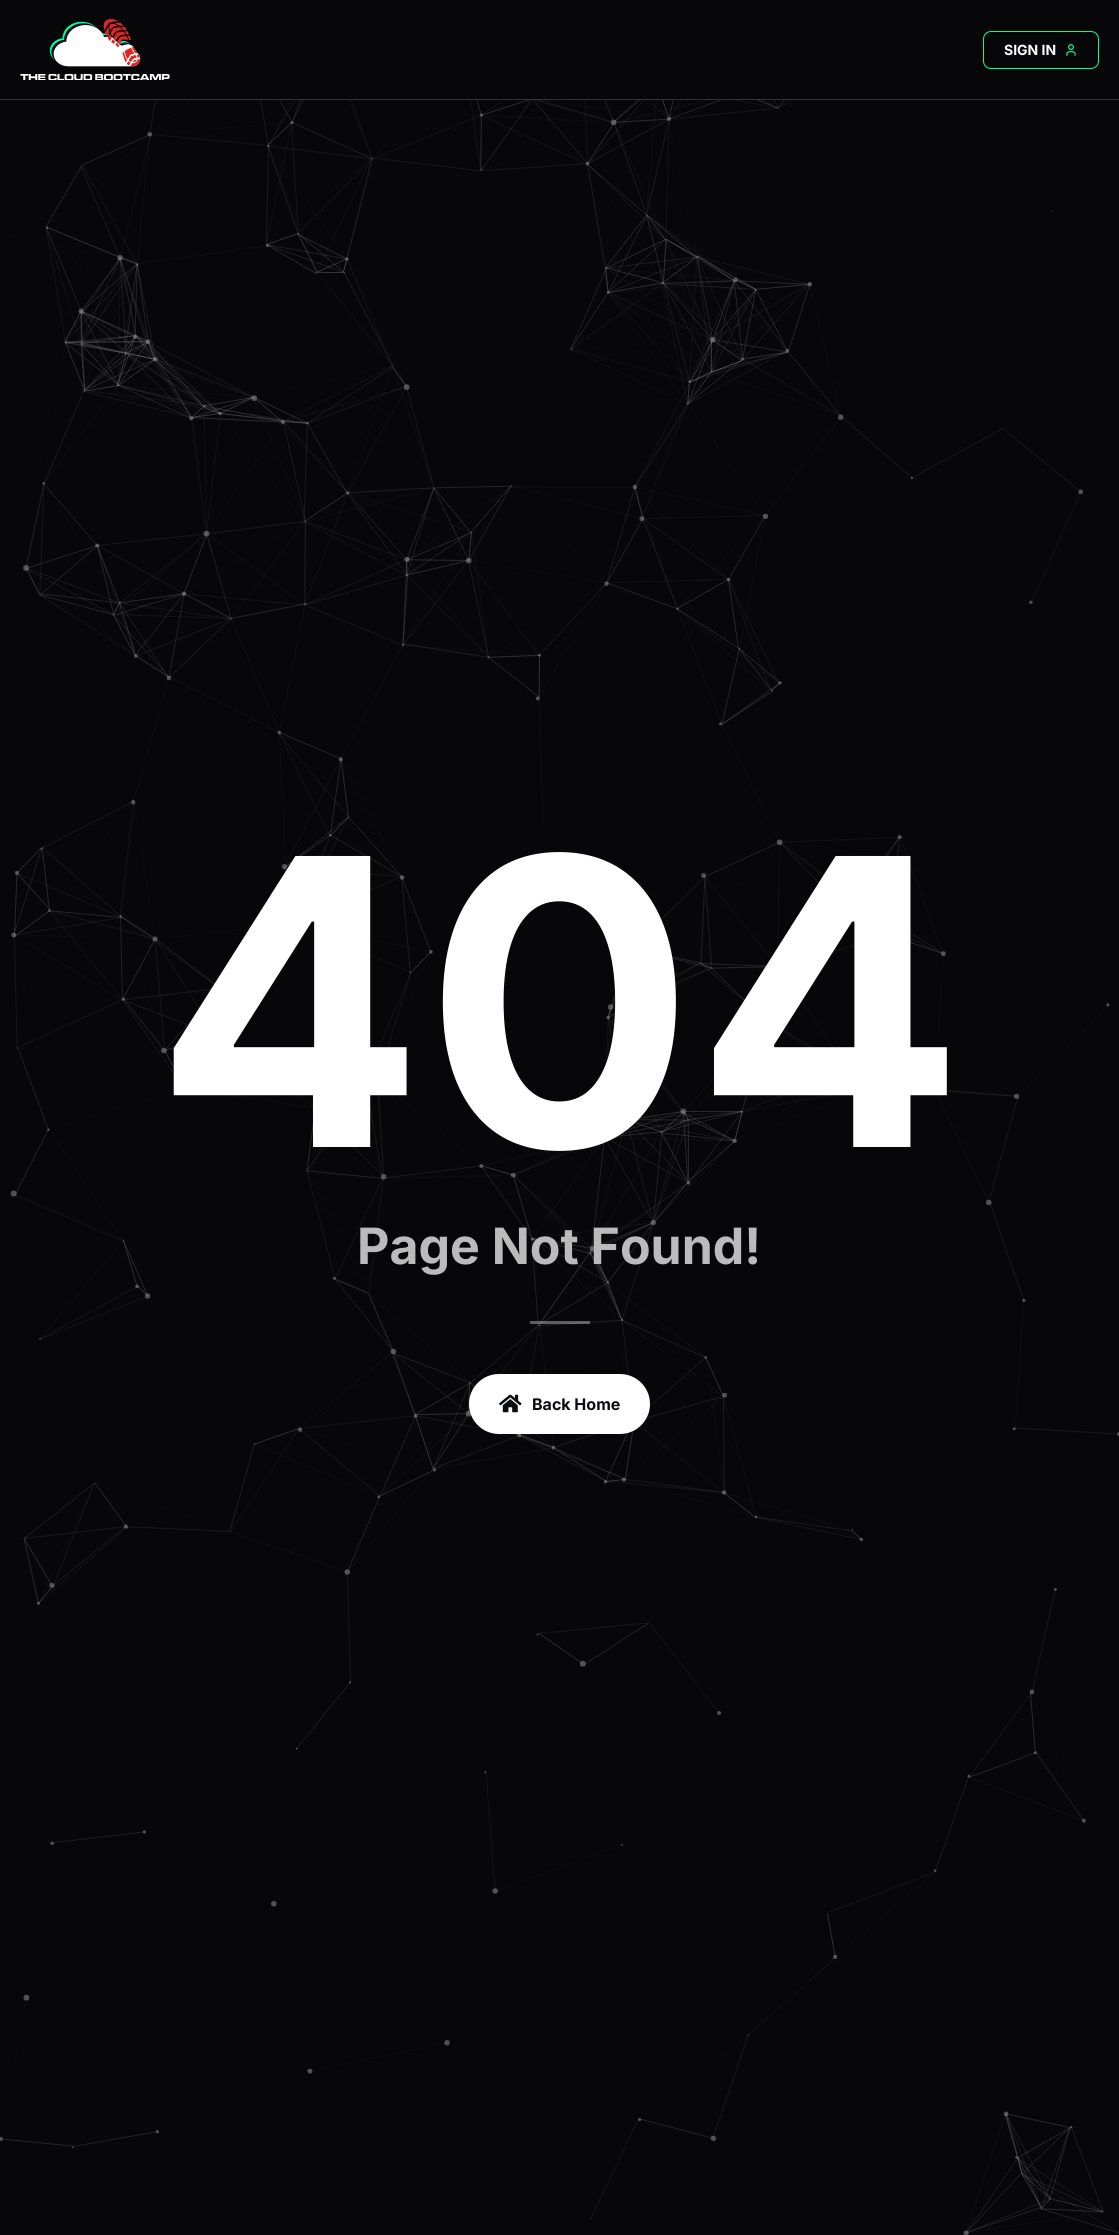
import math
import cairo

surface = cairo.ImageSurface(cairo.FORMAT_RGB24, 1119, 2235)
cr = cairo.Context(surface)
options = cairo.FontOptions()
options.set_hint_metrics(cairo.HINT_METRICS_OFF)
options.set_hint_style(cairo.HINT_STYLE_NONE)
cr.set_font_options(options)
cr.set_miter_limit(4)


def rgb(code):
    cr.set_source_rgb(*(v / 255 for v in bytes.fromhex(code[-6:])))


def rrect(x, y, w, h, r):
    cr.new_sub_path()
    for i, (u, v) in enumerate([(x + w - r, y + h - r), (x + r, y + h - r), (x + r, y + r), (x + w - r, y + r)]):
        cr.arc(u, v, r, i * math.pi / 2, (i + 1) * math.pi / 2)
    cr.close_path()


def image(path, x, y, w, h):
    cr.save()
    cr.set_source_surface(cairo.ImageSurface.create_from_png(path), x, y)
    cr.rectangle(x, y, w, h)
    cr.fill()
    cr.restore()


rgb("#07070a")
cr.paint()
rgb("#323238")
cr.rectangle(0, 99, 1119, 1)
cr.fill()
image("img/1.png", 20, 19, 150, 61)
rrect(983.5, 31.5, 115, 37, 7.5)
rgb("#00ff95")
cr.set_line_width(1)
cr.stroke()
image("img/2.png", 1066, 44, 10, 12)
image("img/3.png", 0, 100, 1119, 2135)
cr.set_source_rgba(1, 1, 1, 0.35)
cr.rectangle(530, 1321, 60, 3)
cr.fill()
rgb("#ffffff")
rrect(469, 1374, 181, 60, 30)
cr.fill()
image("img/4.png", 499, 1394, 23, 19)
cr.select_font_face("Inter", cairo.FONT_SLANT_NORMAL, cairo.FONT_WEIGHT_BOLD)
cr.set_font_size(14)
cr.move_to(1004, 55)
cr.show_text("SIGN IN")
cr.set_font_size(400)
cr.move_to(154, 1147)
cr.show_text("404")
cr.set_font_size(50)
rgb("#bbbbbb")
cr.move_to(357, 1264)
cr.show_text("Page Not Found!")
cr.set_font_size(16)
rgb("#0b0c10")
cr.move_to(532, 1410)
cr.show_text("Back Home")
surface.write_to_png("page.png")
